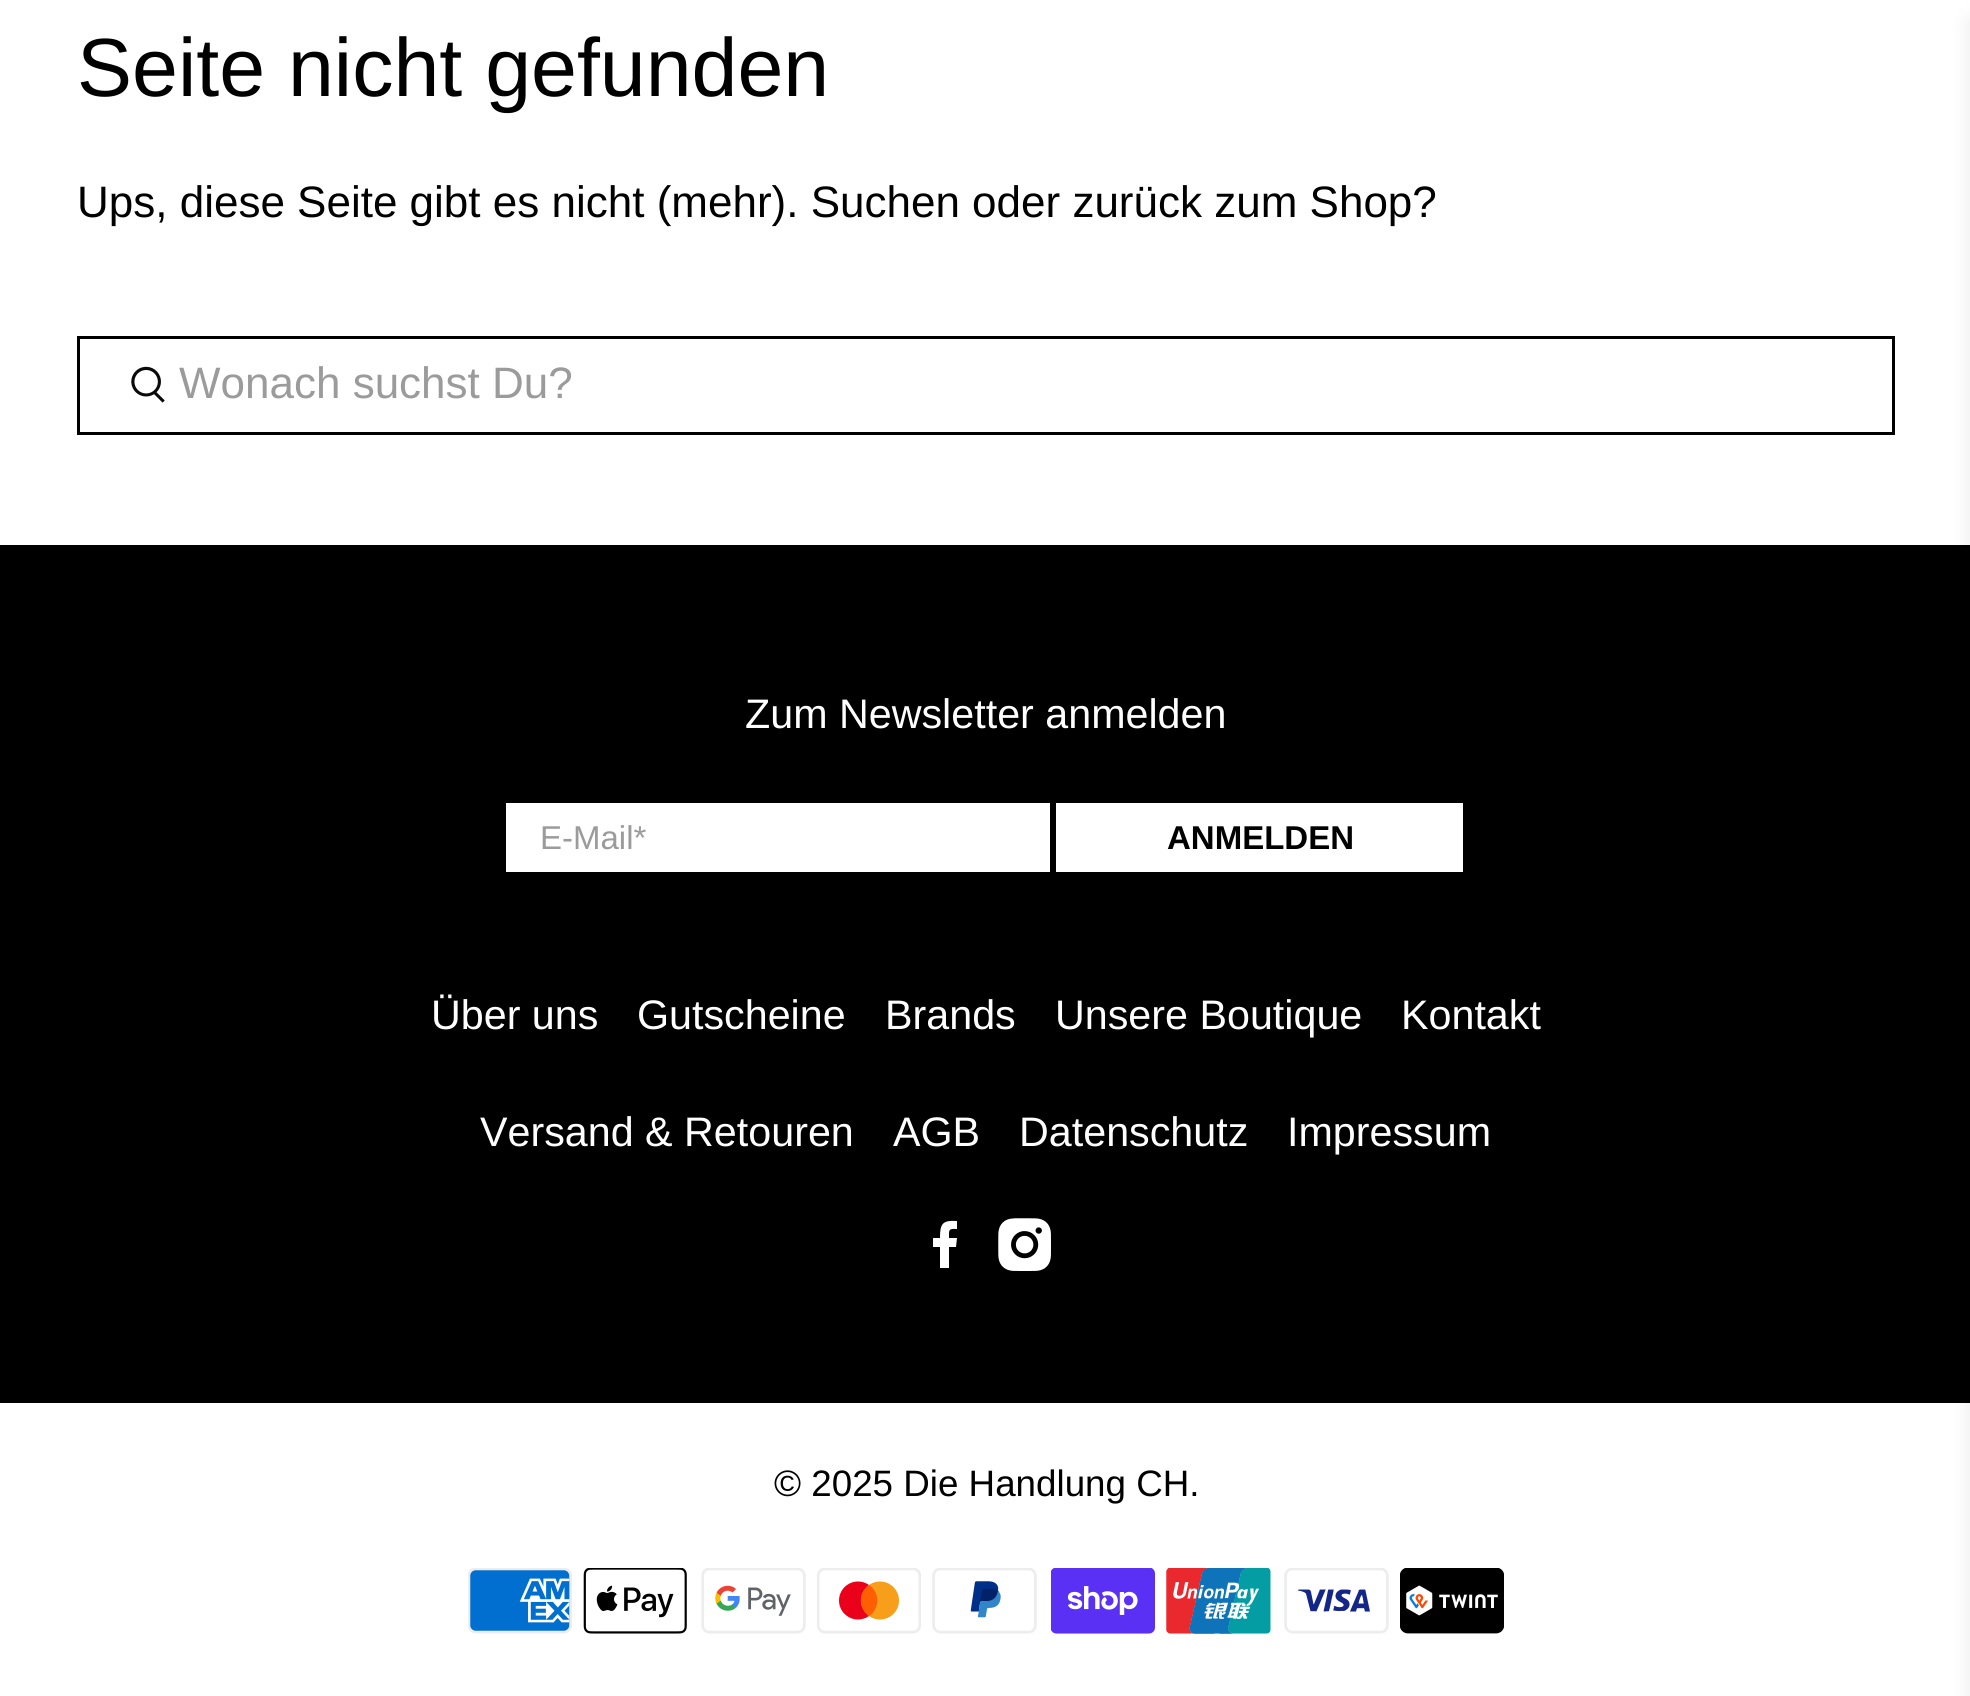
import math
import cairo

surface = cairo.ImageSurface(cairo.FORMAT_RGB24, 1970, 1696)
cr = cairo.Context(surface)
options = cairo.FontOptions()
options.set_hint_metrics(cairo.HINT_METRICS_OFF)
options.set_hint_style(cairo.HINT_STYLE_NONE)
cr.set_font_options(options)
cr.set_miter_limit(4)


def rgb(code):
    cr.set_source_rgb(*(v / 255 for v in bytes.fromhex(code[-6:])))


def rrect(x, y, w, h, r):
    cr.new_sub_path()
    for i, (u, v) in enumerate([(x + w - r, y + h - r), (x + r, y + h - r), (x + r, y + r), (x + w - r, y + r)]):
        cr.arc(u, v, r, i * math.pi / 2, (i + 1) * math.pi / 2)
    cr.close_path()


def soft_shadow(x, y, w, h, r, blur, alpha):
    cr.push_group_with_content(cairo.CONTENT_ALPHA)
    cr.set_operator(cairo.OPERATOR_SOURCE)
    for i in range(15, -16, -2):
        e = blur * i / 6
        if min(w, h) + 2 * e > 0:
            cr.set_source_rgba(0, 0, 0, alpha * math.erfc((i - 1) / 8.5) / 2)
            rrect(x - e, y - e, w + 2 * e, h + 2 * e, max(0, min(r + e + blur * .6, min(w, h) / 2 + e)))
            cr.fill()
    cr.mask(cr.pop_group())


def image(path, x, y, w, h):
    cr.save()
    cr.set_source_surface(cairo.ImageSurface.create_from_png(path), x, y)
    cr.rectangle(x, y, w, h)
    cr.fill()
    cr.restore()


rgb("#ffffff")
cr.paint()
cr.rectangle(78.5, 337.5, 1815, 96)
rgb("#000000")
cr.set_line_width(3)
cr.stroke()
image("img/1.png", 131, 366, 34, 37)
cr.rectangle(0, 545, 1970, 858)
cr.fill()
rgb("#0a0a0a")
soft_shadow(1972, 22, 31, 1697, 0, 11, 0.1)
rgb("#ffffff")
cr.rectangle(506, 803, 544, 69)
cr.fill()
cr.rectangle(1056, 803, 407, 69)
cr.fill()
cr.new_path()
cr.move_to(949, 1233)
cr.line_to(949, 1238)
cr.line_to(957, 1238)
cr.line_to(956, 1247)
cr.line_to(949, 1247)
cr.line_to(949, 1268)
cr.line_to(940, 1268)
cr.line_to(940, 1247)
cr.line_to(933, 1247)
cr.line_to(933, 1238)
cr.line_to(940, 1238)
cr.curve_to(940, 1224, 942, 1220, 957, 1221)
cr.line_to(957, 1229)
cr.curve_to(953, 1229, 949, 1228, 949, 1233)
cr.close_path()
cr.fill()
image("img/2.png", 998, 1218, 53, 53)
image("img/3.png", 468, 1568, 104, 66)
image("img/4.png", 583, 1568, 104, 66)
image("img/5.png", 701, 1568, 105, 66)
image("img/6.png", 817, 1568, 104, 66)
image("img/7.png", 932, 1568, 105, 66)
image("img/8.png", 1051, 1568, 104, 66)
image("img/9.png", 1166, 1568, 105, 66)
image("img/10.png", 1284, 1568, 105, 66)
image("img/11.png", 1400, 1568, 104, 66)
cr.select_font_face("Liberation Sans")
cr.set_font_size(82.5)
rgb("#000000")
cr.move_to(77, 96)
cr.show_text("Seite nicht gefunden")
cr.set_font_size(44)
cr.move_to(77, 217)
cr.show_text("Ups, diese Seite gibt es nicht (mehr). Suchen oder zurück zum Shop?")
rgb("#9b9b9b")
cr.move_to(179, 398)
cr.show_text("Wonach suchst Du?")
cr.set_font_size(41.25)
rgb("#ffffff")
cr.move_to(745, 728)
cr.show_text("Zum Newsletter anmelden")
cr.set_font_size(33)
rgb("#9b9b9b")
cr.move_to(540, 849)
cr.show_text("E-Mail*")
cr.select_font_face("Liberation Sans", cairo.FONT_SLANT_NORMAL, cairo.FONT_WEIGHT_BOLD)
rgb("#000000")
cr.move_to(1167, 849)
cr.show_text("ANMELDEN")
cr.select_font_face("Liberation Sans")
cr.set_font_size(41.25)
rgb("#ffffff")
for x, y, s in [
    (431, 1029, "Über uns"),
    (637, 1029, "Gutscheine"),
    (885, 1029, "Brands"),
    (1055, 1029, "Unsere Boutique"),
    (1401, 1029, "Kontakt"),
    (480, 1146, "Versand & Retouren"),
    (893, 1146, "AGB"),
    (1019, 1146, "Datenschutz"),
    (1287, 1146, "Impressum"),
]:
    cr.move_to(x, y)
    cr.show_text(s)
cr.set_font_size(36.75)
rgb("#000000")
cr.move_to(774, 1496)
cr.show_text("© 2025 Die Handlung CH.")
surface.write_to_png("page.png")
